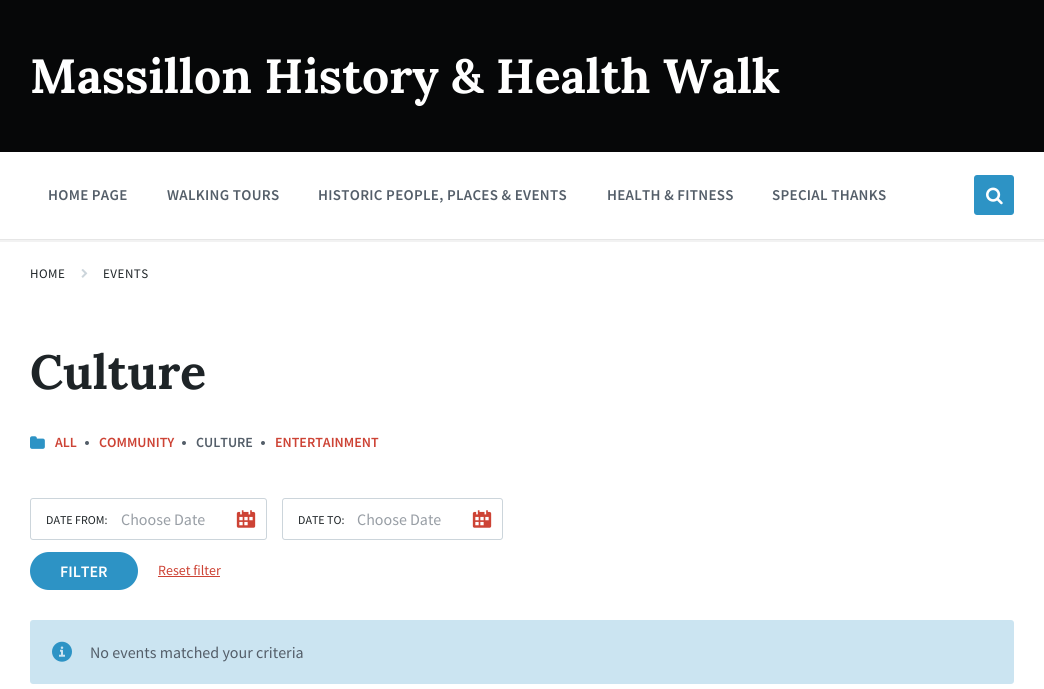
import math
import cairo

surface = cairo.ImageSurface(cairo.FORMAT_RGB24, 1044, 689)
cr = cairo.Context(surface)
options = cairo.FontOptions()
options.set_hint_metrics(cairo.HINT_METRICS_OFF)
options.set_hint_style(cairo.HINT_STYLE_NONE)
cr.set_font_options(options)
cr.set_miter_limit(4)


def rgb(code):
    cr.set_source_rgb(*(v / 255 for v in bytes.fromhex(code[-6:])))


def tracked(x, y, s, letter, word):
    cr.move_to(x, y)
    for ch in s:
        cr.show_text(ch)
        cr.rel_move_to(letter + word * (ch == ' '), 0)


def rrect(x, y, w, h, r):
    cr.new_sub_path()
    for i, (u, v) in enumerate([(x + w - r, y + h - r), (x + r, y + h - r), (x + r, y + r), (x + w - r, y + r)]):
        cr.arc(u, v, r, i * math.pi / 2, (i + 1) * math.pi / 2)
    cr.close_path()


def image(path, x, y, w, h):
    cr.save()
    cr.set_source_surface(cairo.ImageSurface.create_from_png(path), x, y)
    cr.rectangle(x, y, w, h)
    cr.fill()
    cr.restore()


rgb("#ffffff")
cr.paint()
cr.rectangle(-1, 151, 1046, 90)
rgb("#f2f2f2")
cr.stroke()
rgb("#060708")
cr.rectangle(0, 0, 1044, 152)
cr.fill()
rgb("#e6e6e6")
cr.rectangle(0, 239, 1044, 1)
cr.fill()
rgb("#2d93c5")
rrect(974, 175, 40, 40, 3)
cr.fill()
image("img/1.png", 986, 187, 17, 18)
image("img/2.png", 81, 269, 7, 9)
image("img/3.png", 30, 436, 15, 13)
rgb("#545e69")
cr.arc(87, 443, 2, 0, 2 * math.pi)
cr.fill()
cr.arc(184, 443, 2, 0, 2 * math.pi)
cr.fill()
cr.arc(263, 443, 2, 0, 2 * math.pi)
cr.fill()
rrect(30.5, 498.5, 236, 41, 2.5)
rgb("#ccd5db")
cr.set_line_width(1)
cr.stroke()
image("img/4.png", 236, 510, 20, 18)
rrect(282.5, 498.5, 220, 41, 2.5)
cr.stroke()
image("img/4.png", 472, 510, 20, 18)
rgb("#2d93c5")
rrect(30, 552, 108, 38, 19)
cr.fill()
rgb("#cd4335")
cr.rectangle(158, 576, 62, 1)
cr.fill()
rgb("#cbe4f1")
rrect(30, 620, 984, 64, 3)
cr.fill()
image("img/5.png", 52, 641, 20, 21)
cr.select_font_face("Lora", cairo.FONT_SLANT_NORMAL, cairo.FONT_WEIGHT_BOLD)
cr.set_font_size(48)
rgb("#ffffff")
cr.move_to(30, 93)
cr.show_text("Massillon History & Health Walk")
cr.select_font_face("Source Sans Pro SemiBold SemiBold")
cr.set_font_size(15)
rgb("#545e69")
for x, y, s in [
    (48, 200, "HOME PAGE"),
    (167, 200, "WALKING TOURS"),
    (318, 200, "HISTORIC PEOPLE, PLACES & EVENTS"),
    (607, 200, "HEALTH & FITNESS"),
    (772, 200, "SPECIAL THANKS"),
]:
    tracked(x, y, s, 0.3, 0)
cr.select_font_face("Source Sans Pro")
cr.set_font_size(13)
rgb("#1e2427")
tracked(30, 278, "HOME", 0.5, 0)
tracked(103, 278, "EVENTS", 0.5, 0)
cr.select_font_face("Lora", cairo.FONT_SLANT_NORMAL, cairo.FONT_WEIGHT_BOLD)
cr.set_font_size(48)
cr.move_to(30, 389)
cr.show_text("Culture")
cr.select_font_face("Source Sans Pro SemiBold SemiBold")
cr.set_font_size(14)
rgb("#cd4335")
cr.move_to(55, 447)
cr.show_text("ALL")
cr.move_to(99, 447)
cr.show_text("COMMUNITY")
rgb("#545e69")
cr.move_to(196, 447)
cr.show_text("CULTURE")
rgb("#cd4335")
cr.move_to(275, 447)
cr.show_text("ENTERTAINMENT")
cr.select_font_face("Source Sans Pro")
cr.set_font_size(12)
rgb("#1e2427")
cr.move_to(46, 524)
cr.show_text("DATE FROM:")
cr.set_font_size(16)
rgb("#989ea5")
cr.move_to(121, 525)
cr.show_text("Choose Date")
cr.set_font_size(12)
rgb("#1e2427")
cr.move_to(298, 524)
cr.show_text("DATE TO:")
cr.set_font_size(16)
rgb("#989ea5")
cr.move_to(357, 525)
cr.show_text("Choose Date")
cr.select_font_face("Source Sans Pro SemiBold SemiBold")
rgb("#ffffff")
cr.move_to(60, 577)
cr.show_text("FILTER")
cr.select_font_face("Source Sans Pro")
cr.set_font_size(14)
rgb("#cd4335")
cr.move_to(158, 575)
cr.show_text("Reset filter")
cr.set_font_size(16)
rgb("#545e69")
cr.move_to(90, 658)
cr.show_text("No events matched your criteria")
surface.write_to_png("page.png")
